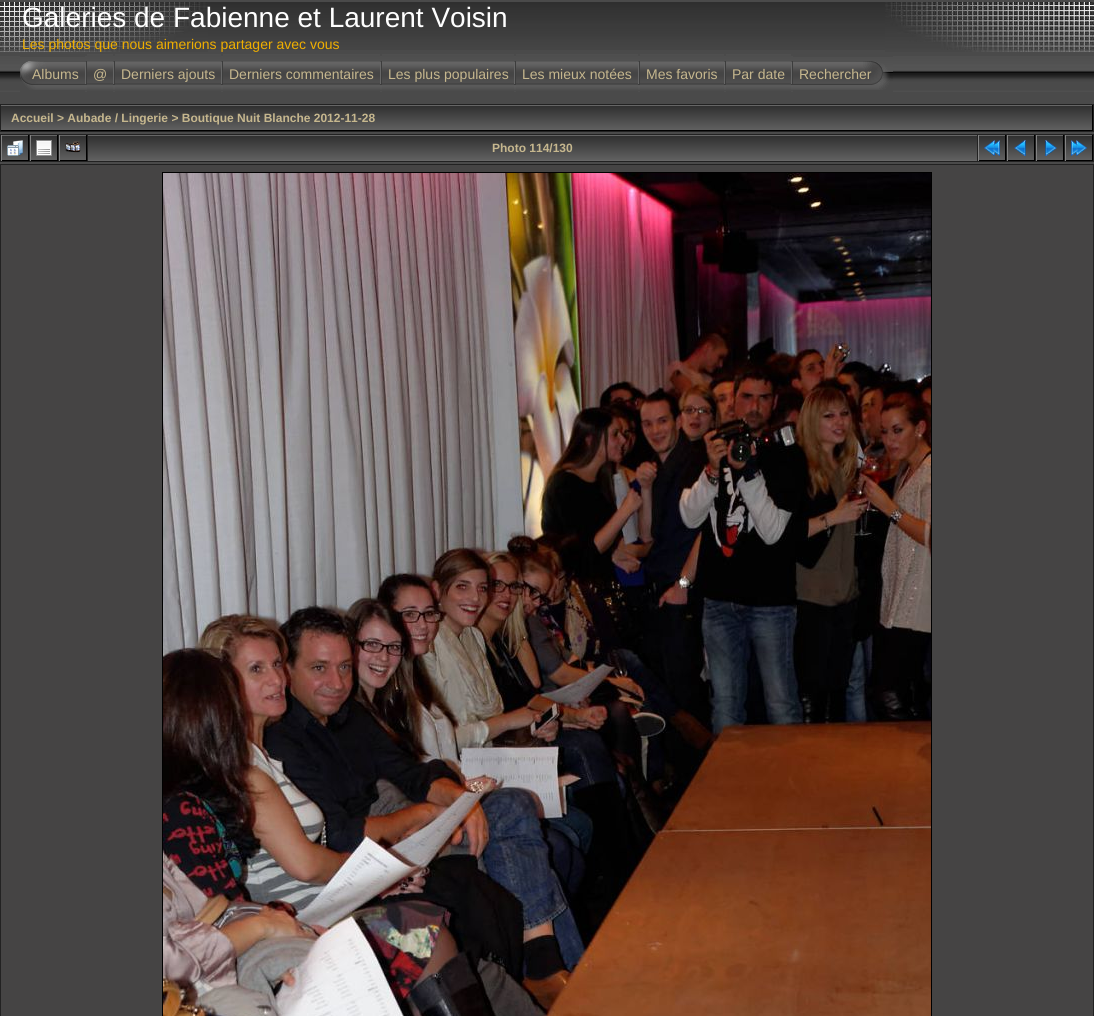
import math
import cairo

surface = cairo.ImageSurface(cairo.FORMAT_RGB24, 1094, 1016)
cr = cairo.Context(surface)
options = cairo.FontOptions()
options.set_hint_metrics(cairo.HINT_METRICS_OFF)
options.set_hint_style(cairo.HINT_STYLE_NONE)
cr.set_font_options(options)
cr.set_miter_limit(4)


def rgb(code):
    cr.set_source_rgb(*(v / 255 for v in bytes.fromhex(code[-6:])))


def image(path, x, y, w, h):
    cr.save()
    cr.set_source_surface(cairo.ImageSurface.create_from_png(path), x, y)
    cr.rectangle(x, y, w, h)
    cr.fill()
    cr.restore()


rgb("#4a4a4a")
cr.paint()
image("img/1.png", 208, 2, 677, 48)
image("img/2.png", 0, 2, 208, 50)
image("img/3.png", 885, 2, 209, 50)
image("img/4.png", 0, 56, 1094, 36)
rgb("#4a4a4a")
cr.rectangle(20, 56, 65, 36)
cr.fill()
image("img/5.png", 20, 57, 65, 33)
image("img/6.png", 85, 61, 2, 29)
cr.rectangle(87, 91, 26, 1)
cr.fill()
image("img/7.png", 87, 54, 26, 36)
image("img/6.png", 113, 61, 2, 29)
cr.rectangle(115, 91, 106, 1)
cr.fill()
image("img/8.png", 115, 54, 106, 36)
image("img/6.png", 221, 61, 2, 29)
cr.rectangle(223, 91, 157, 1)
cr.fill()
image("img/9.png", 223, 54, 157, 36)
image("img/6.png", 380, 61, 2, 29)
cr.rectangle(382, 91, 132, 1)
cr.fill()
image("img/10.png", 382, 54, 132, 36)
image("img/6.png", 514, 61, 2, 29)
cr.rectangle(516, 91, 122, 1)
cr.fill()
image("img/11.png", 516, 54, 122, 36)
image("img/6.png", 638, 61, 2, 29)
cr.rectangle(640, 91, 84, 1)
cr.fill()
image("img/12.png", 640, 54, 84, 36)
image("img/6.png", 724, 61, 2, 29)
cr.rectangle(726, 91, 65, 1)
cr.fill()
image("img/13.png", 726, 54, 65, 36)
image("img/6.png", 791, 61, 2, 29)
cr.rectangle(793, 56, 100, 36)
cr.fill()
image("img/14.png", 793, 57, 100, 33)
rgb("#222222")
cr.rectangle(0, 104, 1094, 28)
cr.fill()
image("img/15.png", 1, 105, 1091, 25)
for x, y, w, h, color in [
    (1092, 105, 1, 26, "#000000"),
    (1, 130, 1092, 1, "#000000"),
    (0, 134, 1094, 28, "#222222"),
]:
    rgb(color)
    cr.rectangle(x, y, w, h)
    cr.fill()
image("img/16.png", 2, 135, 26, 25)
for x, y, w, h, color in [
    (28, 135, 1, 26, "#000000"),
    (1, 160, 28, 1, "#000000"),
    (1, 135, 1, 26, "#838383"),
]:
    rgb(color)
    cr.rectangle(x, y, w, h)
    cr.fill()
image("img/17.png", 7, 140, 16, 16)
image("img/16.png", 31, 135, 26, 25)
for x, y, w, h, color in [
    (57, 135, 1, 26, "#000000"),
    (30, 160, 28, 1, "#000000"),
    (30, 135, 1, 26, "#838383"),
]:
    rgb(color)
    cr.rectangle(x, y, w, h)
    cr.fill()
image("img/18.png", 36, 140, 16, 16)
image("img/16.png", 60, 135, 26, 25)
for x, y, w, h, color in [
    (86, 135, 1, 26, "#000000"),
    (59, 160, 28, 1, "#000000"),
    (59, 135, 1, 26, "#838383"),
]:
    rgb(color)
    cr.rectangle(x, y, w, h)
    cr.fill()
image("img/19.png", 65, 141, 16, 12)
image("img/20.png", 88, 135, 889, 26)
image("img/16.png", 979, 135, 26, 25)
for x, y, w, h, color in [
    (1005, 135, 1, 26, "#000000"),
    (978, 160, 28, 1, "#000000"),
    (978, 135, 1, 26, "#838383"),
]:
    rgb(color)
    cr.rectangle(x, y, w, h)
    cr.fill()
image("img/21.png", 984, 140, 16, 16)
image("img/16.png", 1008, 135, 26, 25)
for x, y, w, h, color in [
    (1034, 135, 1, 26, "#000000"),
    (1007, 160, 28, 1, "#000000"),
    (1007, 135, 1, 26, "#838383"),
]:
    rgb(color)
    cr.rectangle(x, y, w, h)
    cr.fill()
image("img/22.png", 1014, 140, 12, 16)
image("img/16.png", 1037, 135, 26, 25)
for x, y, w, h, color in [
    (1063, 135, 1, 26, "#000000"),
    (1036, 160, 28, 1, "#000000"),
    (1036, 135, 1, 26, "#838383"),
]:
    rgb(color)
    cr.rectangle(x, y, w, h)
    cr.fill()
image("img/23.png", 1045, 140, 12, 16)
image("img/16.png", 1066, 135, 26, 25)
for x, y, w, h, color in [
    (1092, 135, 1, 26, "#000000"),
    (1065, 160, 28, 1, "#000000"),
    (1065, 135, 1, 26, "#838383"),
]:
    rgb(color)
    cr.rectangle(x, y, w, h)
    cr.fill()
image("img/24.png", 1071, 140, 16, 16)
rgb("#222222")
cr.rectangle(0, 164, 1094, 852)
cr.fill()
rgb("#454444")
cr.rectangle(1, 165, 1092, 851)
cr.fill()
cr.rectangle(162.5, 172.5, 769, 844)
rgb("#000000")
cr.set_line_width(1)
cr.stroke()
image("img/25.png", 163, 173, 768, 843)
cr.select_font_face("Liberation Sans")
cr.set_font_size(28)
rgb("#ffffff")
cr.move_to(22, 27)
cr.show_text("Galeries de Fabienne et Laurent Voisin")
cr.set_font_size(14)
rgb("#f0af00")
cr.move_to(22, 49)
cr.show_text("Les photos que nous aimerions partager avec vous")
rgb("#c6b78e")
for x, y, s in [
    (32, 79, "Albums"),
    (93, 79, "@"),
    (121, 79, "Derniers ajouts"),
    (229, 79, "Derniers commentaires"),
    (388, 79, "Les plus populaires"),
    (522, 79, "Les mieux notées"),
    (646, 79, "Mes favoris"),
    (732, 79, "Par date"),
    (799, 79, "Rechercher"),
]:
    cr.move_to(x, y)
    cr.show_text(s)
cr.select_font_face("Liberation Sans", cairo.FONT_SLANT_NORMAL, cairo.FONT_WEIGHT_BOLD)
cr.set_font_size(12)
cr.move_to(11, 122)
cr.show_text("Accueil > Aubade / Lingerie > Boutique Nuit Blanche 2012-11-28")
cr.move_to(492, 152)
cr.show_text("Photo 114/130")
surface.write_to_png("page.png")
